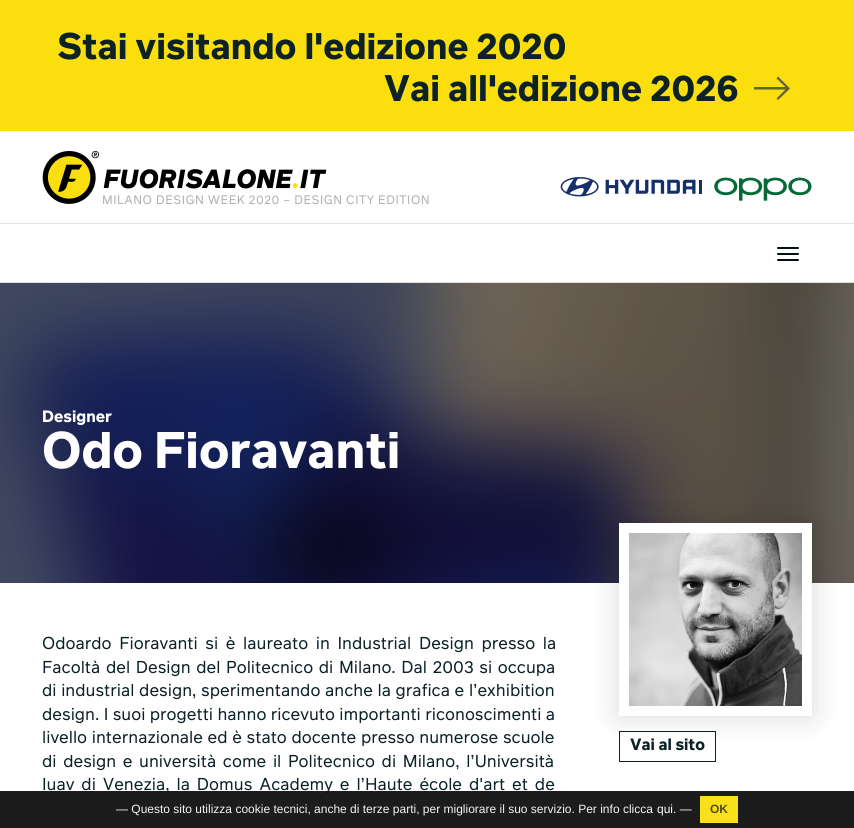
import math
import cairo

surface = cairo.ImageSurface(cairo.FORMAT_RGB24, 854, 828)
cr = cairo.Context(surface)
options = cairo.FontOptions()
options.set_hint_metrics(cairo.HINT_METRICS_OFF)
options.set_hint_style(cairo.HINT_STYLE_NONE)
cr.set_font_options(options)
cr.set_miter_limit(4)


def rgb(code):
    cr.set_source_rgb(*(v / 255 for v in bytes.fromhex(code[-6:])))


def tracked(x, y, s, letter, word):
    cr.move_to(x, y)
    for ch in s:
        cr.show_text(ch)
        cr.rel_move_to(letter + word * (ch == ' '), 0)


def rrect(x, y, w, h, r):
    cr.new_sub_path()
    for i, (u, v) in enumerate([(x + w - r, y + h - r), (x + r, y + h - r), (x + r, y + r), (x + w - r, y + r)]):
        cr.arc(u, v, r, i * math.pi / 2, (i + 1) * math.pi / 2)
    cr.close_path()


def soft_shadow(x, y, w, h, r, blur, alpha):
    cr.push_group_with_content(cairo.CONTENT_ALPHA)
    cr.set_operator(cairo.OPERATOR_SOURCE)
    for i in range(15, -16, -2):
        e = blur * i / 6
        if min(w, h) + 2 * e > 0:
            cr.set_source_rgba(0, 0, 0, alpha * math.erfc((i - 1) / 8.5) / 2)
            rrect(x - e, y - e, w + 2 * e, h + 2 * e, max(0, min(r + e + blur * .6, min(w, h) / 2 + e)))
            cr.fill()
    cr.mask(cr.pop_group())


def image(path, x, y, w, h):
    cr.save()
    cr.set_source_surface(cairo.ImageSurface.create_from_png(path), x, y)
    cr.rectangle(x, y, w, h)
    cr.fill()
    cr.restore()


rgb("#ffffff")
cr.paint()
rgb("#fade0d")
cr.rectangle(0, 0, 854, 131)
cr.fill()
rgb("#616333")
cr.new_path()
cr.move_to(754, 87)
cr.line_to(785.5, 87)
cr.line_to(776.5, 78.5)
cr.line_to(778, 76.5)
cr.line_to(790, 88.5)
cr.line_to(778, 100)
cr.line_to(776.5, 98.5)
cr.line_to(785.5, 89.5)
cr.line_to(754, 89.5)
cr.close_path()
cr.fill()
rgb("#e2e2e2")
cr.rectangle(0, 223, 854, 1)
cr.fill()
image("img/1.png", 42, 151, 285, 53)
image("img/2.png", 560, 177, 142, 20)
image("img/3.png", 714, 177, 98, 24)
rgb("#e0e0e0")
cr.rectangle(0, 282, 854, 1)
cr.fill()
rgb("#001216")
rrect(777, 247, 22, 2, 1)
cr.fill()
rrect(777, 253, 22, 2, 1)
cr.fill()
rrect(777, 259, 22, 2, 1)
cr.fill()
image("img/4.png", 0, 283, 854, 300)
cr.rectangle(619.5, 731.5, 96, 30)
rgb("#0c2227")
cr.set_line_width(1)
cr.stroke()
cr.save()
cr.rectangle(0, 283, 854, 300)
cr.clip()
rgb("#000000")
soft_shadow(-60, 133, 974, 600, 0, 20, 0.3)
cr.restore()
rgb("#000000")
soft_shadow(619, 523, 193, 193, 0, 15, 0.15)
rgb("#ffffff")
cr.rectangle(619, 523, 193, 193)
cr.fill()
image("img/5.png", 629, 533, 173, 173)
cr.select_font_face("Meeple", cairo.FONT_SLANT_NORMAL, cairo.FONT_WEIGHT_BOLD)
cr.set_font_size(36)
rgb("#0c2227")
cr.move_to(57, 59)
cr.show_text("Stai visitando l'edizione 2020")
cr.move_to(384, 101)
cr.show_text("Vai all'edizione 2026")
cr.select_font_face("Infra")
cr.set_font_size(12)
rgb("#afb0b4")
tracked(102, 204, "MILANO DESIGN WEEK 2020 – DESIGN CITY EDITION", 0.5, 0)
cr.select_font_face("Meeple", cairo.FONT_SLANT_NORMAL, cairo.FONT_WEIGHT_BOLD)
cr.set_font_size(16)
rgb("#ffffff")
cr.move_to(42, 422)
cr.show_text("Designer")
cr.set_font_size(50)
cr.move_to(42, 468)
cr.show_text("Odo Fioravanti")
cr.select_font_face("Infra")
cr.set_font_size(16.8)
rgb("#0c2227")
tracked(42, 649, "Odoardo Fioravanti si è laureato in Industrial Design presso la", 0, 3.5)
tracked(42, 673, "Facoltà del Design del Politecnico di Milano. Dal 2003 si occupa", 0, 1.5)
tracked(42, 696, "di industrial design, sperimentando anche la grafica e l’exhibition", 0, 0.5)
tracked(42, 720, "design. I suoi progetti hanno ricevuto importanti riconoscimenti a", 0, 0.25)
tracked(42, 743, "livello internazionale ed è stato docente presso numerose scuole", 0, 0.5)
tracked(42, 767, "di design e università come il Politecnico di Milano, l’Università", 0, 2.5)
tracked(42, 790, "Iuav di Venezia, la Domus Academy e l’Haute école d'art et de", 0, 2.75)
cr.select_font_face("Meeple", cairo.FONT_SLANT_NORMAL, cairo.FONT_WEIGHT_BOLD)
cr.set_font_size(16)
cr.move_to(630, 750)
cr.show_text("Vai al sito")
cr.set_source_rgba(0.067, 0.067, 0.067, 0.95)
cr.rectangle(0, 791, 854, 37)
cr.fill()
cr.select_font_face("Liberation Sans")
cr.set_font_size(12)
rgb("#f4f4f4")
cr.move_to(116, 813)
cr.show_text("— Questo sito utilizza cookie tecnici, anche di terze parti, per migliorare il suo servizio. Per info clicca")
rgb("#ffffff")
cr.move_to(657, 813)
cr.show_text("qui. —")
rgb("#fae019")
cr.rectangle(700, 796, 38, 27)
cr.fill()
cr.select_font_face("Liberation Sans", cairo.FONT_SLANT_NORMAL, cairo.FONT_WEIGHT_BOLD)
rgb("#4d4d0d")
cr.move_to(710, 813)
cr.show_text("OK")
surface.write_to_png("page.png")
